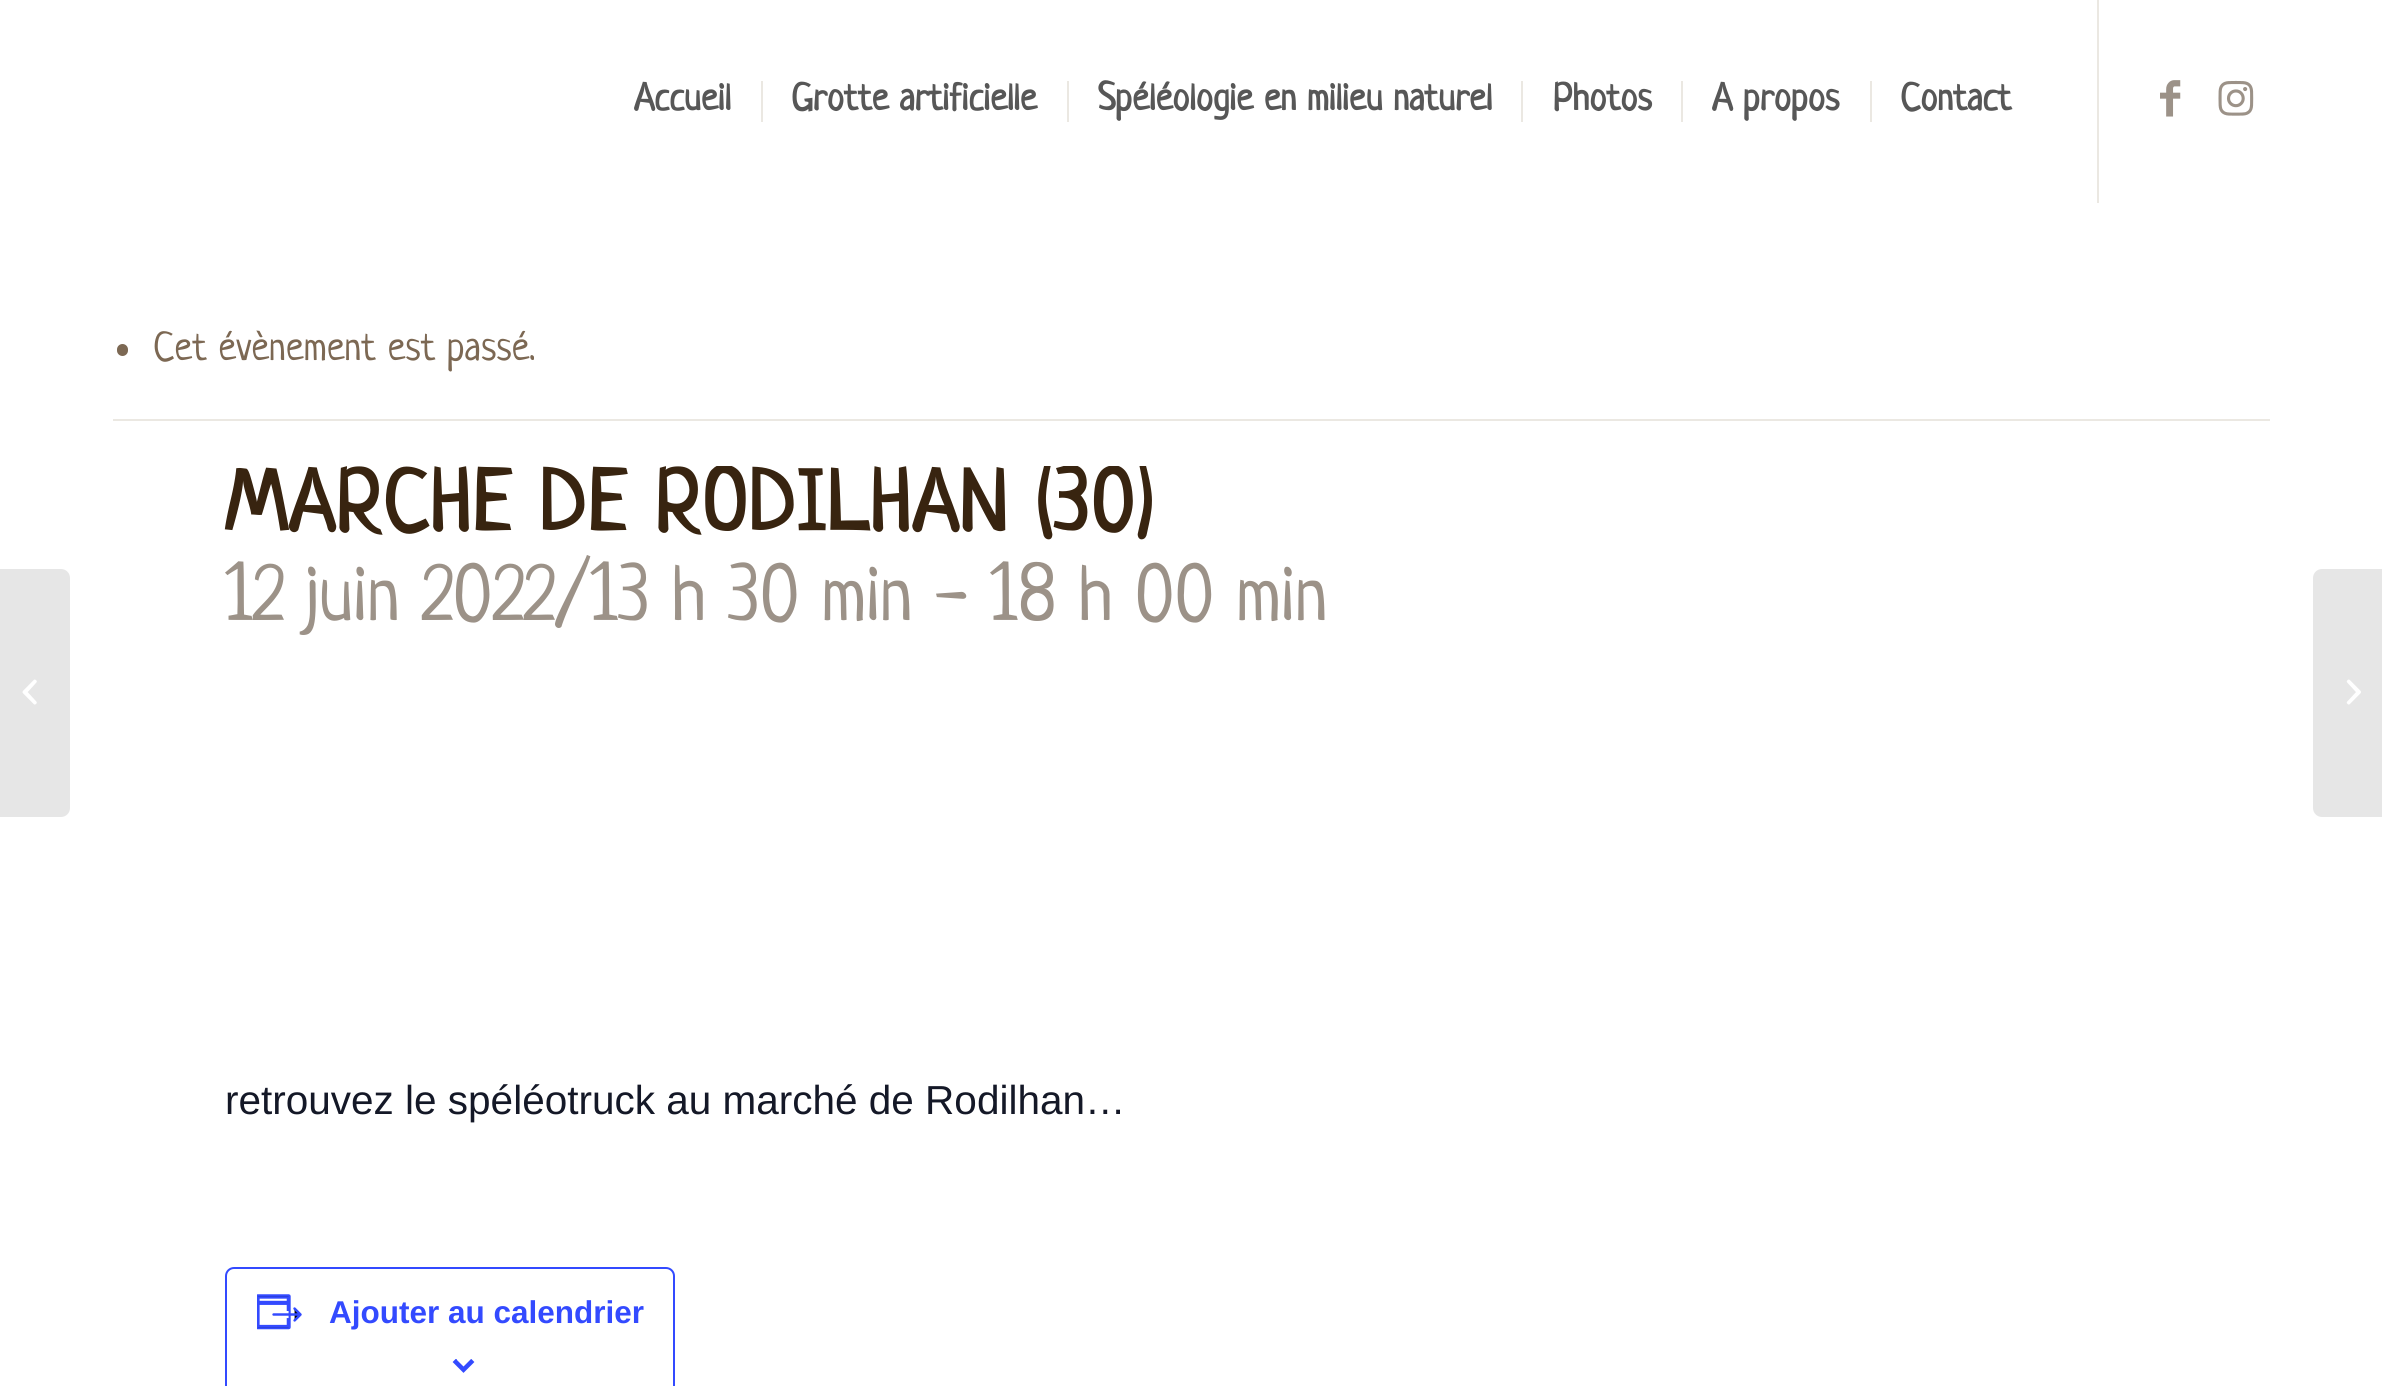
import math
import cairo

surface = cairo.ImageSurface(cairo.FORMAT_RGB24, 2382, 1386)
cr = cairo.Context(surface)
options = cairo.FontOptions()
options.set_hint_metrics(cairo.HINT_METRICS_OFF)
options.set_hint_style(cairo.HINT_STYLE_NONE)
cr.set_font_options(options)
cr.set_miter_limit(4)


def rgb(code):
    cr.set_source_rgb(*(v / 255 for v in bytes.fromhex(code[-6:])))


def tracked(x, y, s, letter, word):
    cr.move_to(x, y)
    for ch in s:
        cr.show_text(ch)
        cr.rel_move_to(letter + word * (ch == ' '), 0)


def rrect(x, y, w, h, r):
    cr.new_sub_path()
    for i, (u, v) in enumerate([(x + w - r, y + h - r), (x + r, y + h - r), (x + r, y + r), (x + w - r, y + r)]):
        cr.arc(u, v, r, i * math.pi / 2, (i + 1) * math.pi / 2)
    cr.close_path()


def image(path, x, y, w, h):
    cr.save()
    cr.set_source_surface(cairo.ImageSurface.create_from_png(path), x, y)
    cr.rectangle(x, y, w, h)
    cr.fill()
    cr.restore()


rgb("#ffffff")
cr.paint()
for x, y, w, h, color in [
    (2097, 0, 2, 203, "#ebe8e2"),
    (761, 81, 2, 41, "#ebe8e2"),
    (1067, 81, 2, 41, "#ebe8e2"),
    (1521, 81, 2, 41, "#ebe8e2"),
    (1681, 81, 2, 41, "#ebe8e2"),
    (1870, 81, 2, 41, "#ebe8e2"),
]:
    rgb(color)
    cr.rectangle(x, y, w, h)
    cr.fill()
image("img/1.png", 2160, 80, 21, 37)
image("img/2.png", 2218, 80, 36, 36)
rgb("#e6e6e6")
cr.new_path()
cr.move_to(0, 569)
cr.line_to(61, 569)
cr.curve_to(66, 569, 70, 573, 70, 578)
cr.line_to(70, 808)
cr.curve_to(70, 813, 66, 817, 61, 817)
cr.line_to(0, 817)
cr.close_path()
cr.fill()
image("img/3.png", 22, 679, 15, 26)
rgb("#ebe8e2")
cr.rectangle(113, 419, 2157, 2)
cr.fill()
rgb("#7c6853")
rrect(117, 344, 11, 12, 5.5)
cr.fill()
rrect(226, 1268, 448, 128, 8)
rgb("#334aff")
cr.stroke()
image("img/4.png", 257, 1294, 45, 36)
image("img/5.png", 452, 1359, 23, 14)
rgb("#e6e6e6")
cr.new_path()
cr.move_to(2322, 569)
cr.line_to(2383, 569)
cr.line_to(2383, 817)
cr.line_to(2322, 817)
cr.curve_to(2317, 817, 2313, 813, 2313, 808)
cr.line_to(2313, 578)
cr.curve_to(2313, 573, 2317, 569, 2322, 569)
cr.close_path()
cr.fill()
image("img/6.png", 2346, 679, 15, 26)
cr.select_font_face("Neucha", cairo.FONT_SLANT_NORMAL, cairo.FONT_WEIGHT_BOLD)
cr.set_font_size(38.25)
rgb("#575757")
for x, y, s in [
    (634, 110, "Accueil"),
    (791, 110, "Grotte artificielle"),
    (1098, 110, "Spéléologie en milieu naturel"),
    (1553, 110, "Photos"),
    (1712, 110, "A propos"),
    (1900, 110, "Contact"),
]:
    cr.move_to(x, y)
    cr.show_text(s)
cr.select_font_face("Neucha")
cr.set_font_size(40.5)
rgb("#7c6853")
cr.move_to(153, 360)
cr.show_text("Cet évènement est passé.")
cr.save()
cr.rectangle(113, 466, 2157, 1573)
cr.clip()
cr.select_font_face("Neucha", cairo.FONT_SLANT_NORMAL, cairo.FONT_WEIGHT_BOLD)
cr.set_font_size(85.5)
rgb("#382410")
tracked(225, 530, "MARCHÉ DE RODILHAN (30)", 2.25, 0)
cr.restore()
cr.set_font_size(78.75)
rgb("#9c9288")
cr.move_to(225, 620)
cr.show_text("12 juin 2022/13 h 30 min - 18 h 00 min")
cr.select_font_face("Liberation Sans")
cr.set_font_size(40.5)
rgb("#141827")
cr.move_to(225, 1114)
cr.show_text("retrouvez le spéléotruck au marché de Rodilhan…")
cr.select_font_face("Liberation Sans", cairo.FONT_SLANT_NORMAL, cairo.FONT_WEIGHT_BOLD)
cr.set_font_size(31.5)
rgb("#334aff")
cr.move_to(329, 1323)
cr.show_text("Ajouter au calendrier")
surface.write_to_png("page.png")
